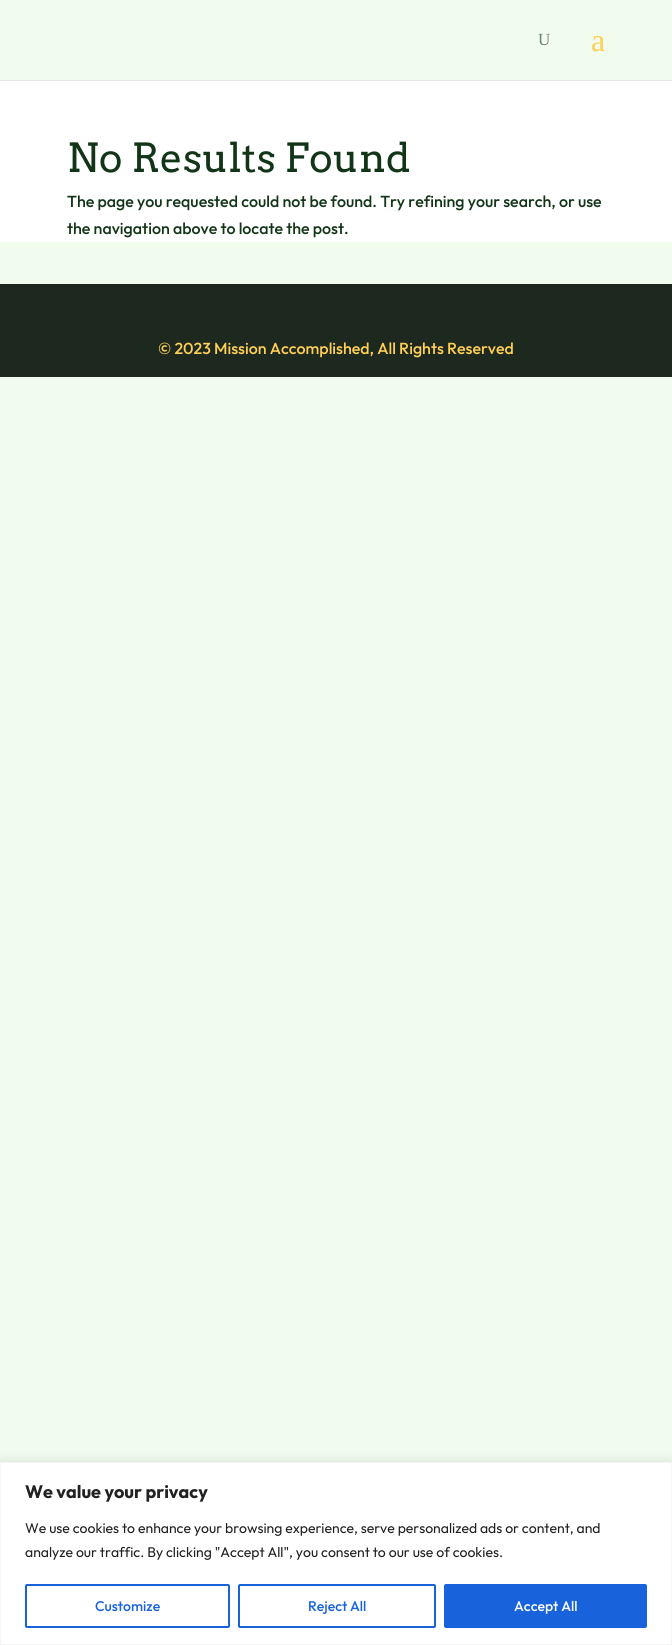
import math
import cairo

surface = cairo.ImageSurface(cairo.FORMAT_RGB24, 672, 1645)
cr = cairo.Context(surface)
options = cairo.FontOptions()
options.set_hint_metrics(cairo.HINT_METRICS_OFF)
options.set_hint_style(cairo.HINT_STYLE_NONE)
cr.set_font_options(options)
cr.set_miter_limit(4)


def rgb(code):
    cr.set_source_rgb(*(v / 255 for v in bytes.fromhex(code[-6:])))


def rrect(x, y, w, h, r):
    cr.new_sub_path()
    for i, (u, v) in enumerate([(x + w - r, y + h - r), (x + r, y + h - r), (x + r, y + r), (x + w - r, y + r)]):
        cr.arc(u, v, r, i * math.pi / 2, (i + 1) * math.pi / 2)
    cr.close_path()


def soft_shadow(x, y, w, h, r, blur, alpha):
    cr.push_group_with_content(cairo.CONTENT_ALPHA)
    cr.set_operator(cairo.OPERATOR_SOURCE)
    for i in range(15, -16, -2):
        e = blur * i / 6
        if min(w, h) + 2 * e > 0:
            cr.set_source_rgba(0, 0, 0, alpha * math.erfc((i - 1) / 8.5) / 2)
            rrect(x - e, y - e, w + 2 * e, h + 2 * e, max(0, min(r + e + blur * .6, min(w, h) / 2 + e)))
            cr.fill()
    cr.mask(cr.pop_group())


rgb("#f1fbee")
cr.paint()
for x, y, w, h, color in [
    (0, 80, 672, 1, "#e6e6e6"),
    (0, 81, 672, 161, "#ffffff"),
    (0, 284, 672, 93, "#1d281e"),
]:
    rgb(color)
    cr.rectangle(x, y, w, h)
    cr.fill()
rgb("#acabab")
soft_shadow(0, 1461, 672, 183, 0, 5, 0.3)
rgb("#ffffff")
cr.rectangle(0.5, 1462.5, 671, 182)
cr.fill_preserve()
rgb("#f4f4f4")
cr.set_line_width(1)
cr.stroke()
rrect(26, 1585, 203, 42, 1)
rgb("#1863dc")
cr.set_line_width(2)
cr.stroke()
rrect(239, 1585, 196, 42, 1)
cr.stroke()
rrect(445, 1585, 201, 42, 1)
cr.fill_preserve()
cr.stroke()
cr.select_font_face("Liberation Serif")
cr.set_font_size(17)
rgb("#6b846d")
cr.move_to(538, 45)
cr.show_text("U")
cr.set_font_size(32)
rgb("#ffcf56")
cr.move_to(591, 51)
cr.show_text("a")
cr.select_font_face("Arvo")
cr.set_font_size(40)
rgb("#123517")
cr.move_to(67, 172)
cr.show_text("No Results Found")
cr.select_font_face("Outfit Medium")
cr.set_font_size(16)
cr.move_to(67, 207)
cr.show_text("The page you requested could not be found. Try refining your search, or use")
cr.move_to(67, 234)
cr.show_text("the navigation above to locate the post.")
rgb("#ffcf56")
cr.move_to(158, 354)
cr.show_text("© 2023 Mission Accomplished, All Rights Reserved")
cr.select_font_face("Outfit", cairo.FONT_SLANT_NORMAL, cairo.FONT_WEIGHT_BOLD)
cr.set_font_size(18)
rgb("#212121")
cr.move_to(25, 1498)
cr.show_text("We value your privacy")
cr.select_font_face("Outfit")
cr.set_font_size(14)
cr.move_to(25, 1533)
cr.show_text("We use cookies to enhance your browsing experience, serve personalized ads or content, and")
cr.move_to(25, 1557)
cr.show_text("analyze our traffic. By clicking \"Accept All\", you consent to our use of cookies.")
cr.select_font_face("Outfit Medium")
rgb("#1863dc")
cr.move_to(95, 1611)
cr.show_text("Customize")
cr.move_to(308, 1611)
cr.show_text("Reject All")
rgb("#ffffff")
cr.move_to(514, 1611)
cr.show_text("Accept All")
surface.write_to_png("page.png")
